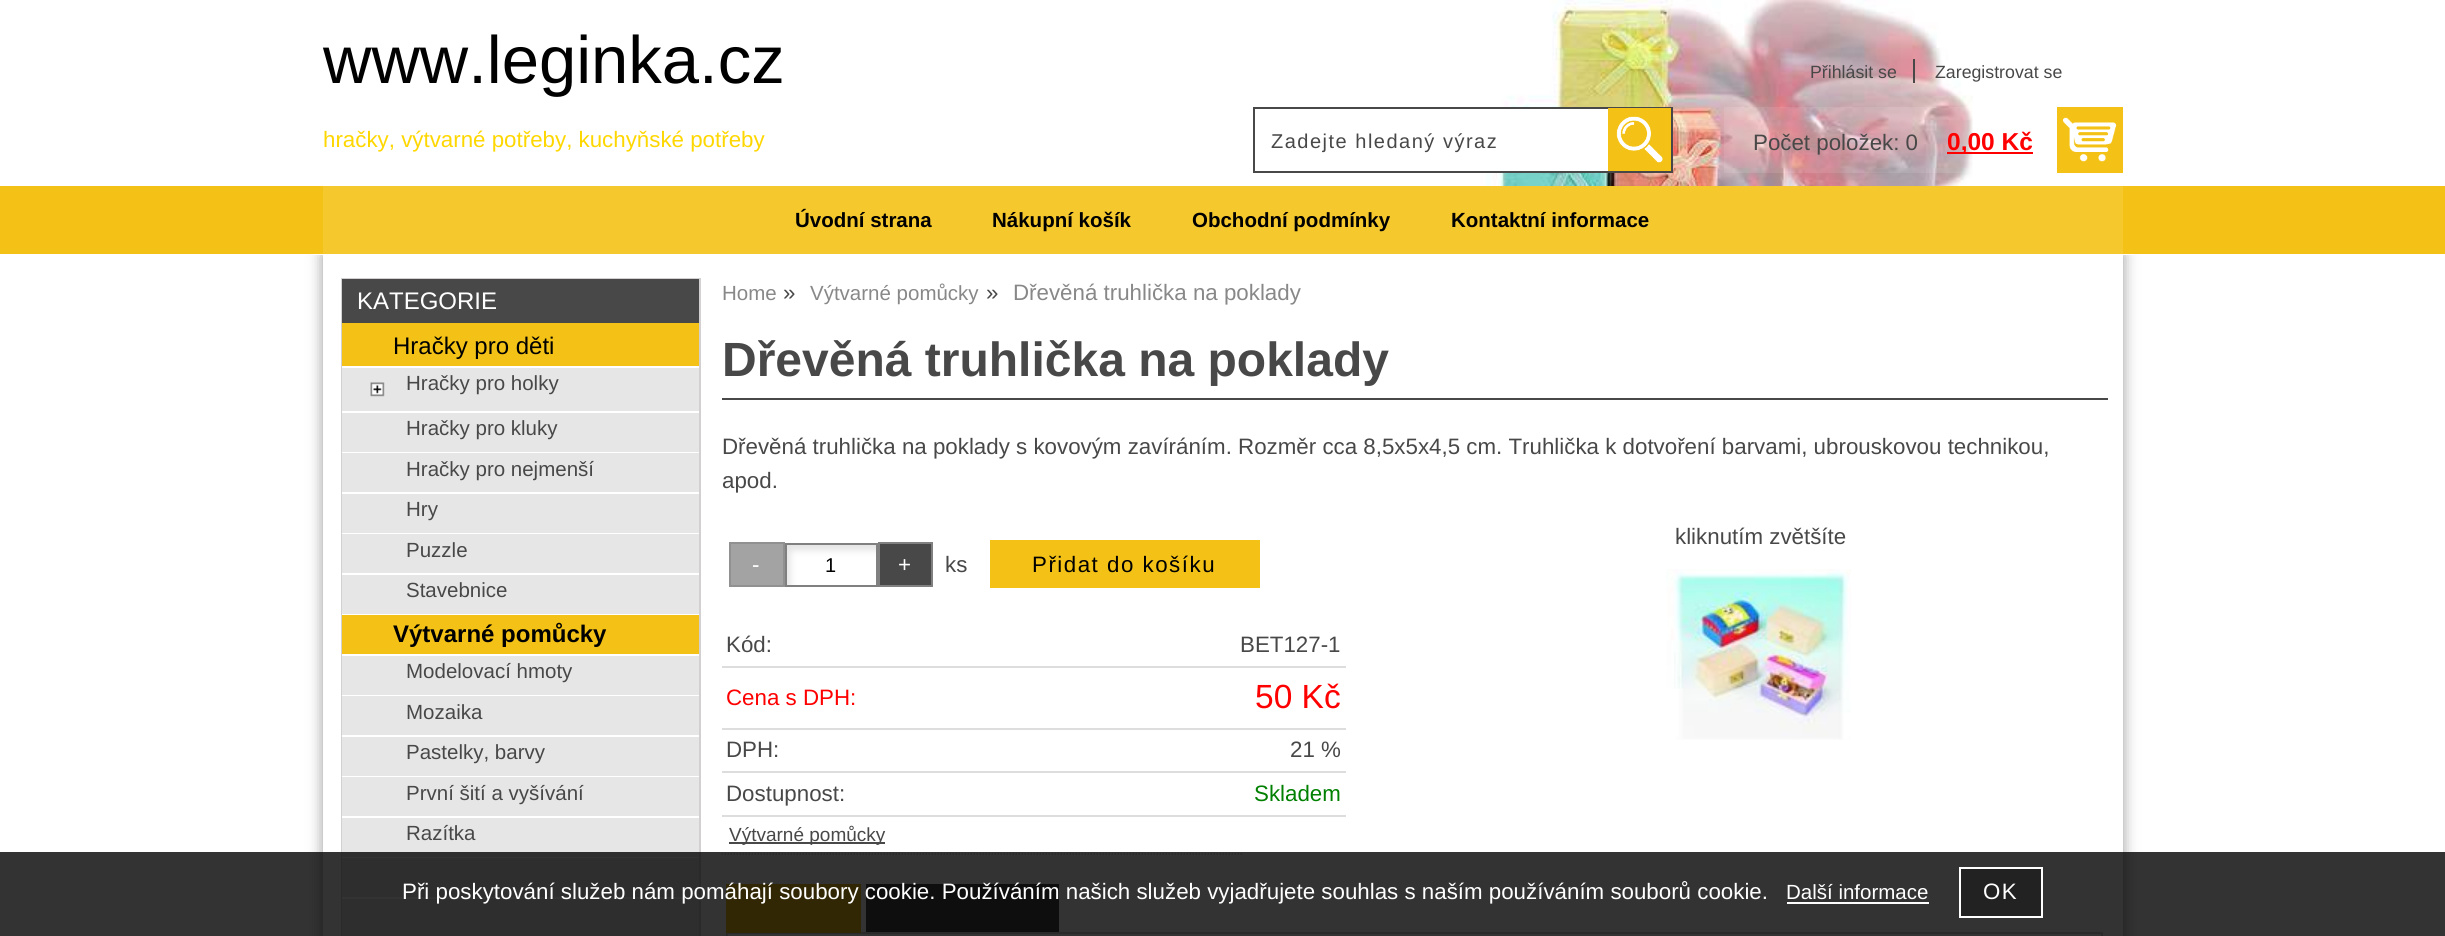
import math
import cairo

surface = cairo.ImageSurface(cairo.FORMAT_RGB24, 2445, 936)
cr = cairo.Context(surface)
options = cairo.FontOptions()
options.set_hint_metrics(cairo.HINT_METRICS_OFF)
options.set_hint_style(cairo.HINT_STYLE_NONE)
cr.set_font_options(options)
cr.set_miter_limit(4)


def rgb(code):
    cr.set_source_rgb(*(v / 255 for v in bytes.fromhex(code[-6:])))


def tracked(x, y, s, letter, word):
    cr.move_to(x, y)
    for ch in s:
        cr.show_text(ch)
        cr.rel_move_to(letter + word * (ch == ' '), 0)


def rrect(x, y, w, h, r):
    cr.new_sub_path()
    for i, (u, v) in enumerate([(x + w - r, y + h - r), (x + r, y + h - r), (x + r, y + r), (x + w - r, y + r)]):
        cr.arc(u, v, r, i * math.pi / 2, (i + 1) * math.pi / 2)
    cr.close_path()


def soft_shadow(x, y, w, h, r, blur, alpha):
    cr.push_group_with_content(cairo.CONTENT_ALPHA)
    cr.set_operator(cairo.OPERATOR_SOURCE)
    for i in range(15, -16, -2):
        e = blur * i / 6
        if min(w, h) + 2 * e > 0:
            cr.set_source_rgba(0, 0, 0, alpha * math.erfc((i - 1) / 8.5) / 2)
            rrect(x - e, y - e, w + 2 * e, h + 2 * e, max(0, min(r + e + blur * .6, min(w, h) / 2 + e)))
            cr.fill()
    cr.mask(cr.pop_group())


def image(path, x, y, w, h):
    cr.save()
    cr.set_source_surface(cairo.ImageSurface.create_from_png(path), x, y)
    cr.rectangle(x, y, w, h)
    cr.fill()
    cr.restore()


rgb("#ffffff")
cr.paint()
rgb("#323232")
soft_shadow(323, 255, 1800, 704, 0, 7.5, 0.5)
rgb("#ffffff")
cr.rectangle(311, 240, 1824, 15)
cr.fill()
image("img/1.png", 1481, 0, 492, 186)
rgb("#484848")
cr.rectangle(1913, 59, 2, 24)
cr.fill()
rgb("#ffffff")
cr.rectangle(1481, 109, 127, 62)
cr.fill()
cr.rectangle(1254, 108, 418, 64)
rgb("#484848")
cr.stroke()
rgb("#f4c216")
cr.rectangle(1608, 108, 63, 63)
cr.fill()
image("img/2.png", 1616, 116, 47, 47)
cr.set_source_rgba(1, 1, 1, 0.1)
cr.rectangle(1724, 107, 247, 66)
cr.fill()
rgb("#ff0000")
cr.rectangle(1947, 152, 86, 2)
cr.fill()
rgb("#f4c216")
cr.rectangle(2057, 107, 66, 66)
cr.fill()
image("img/3.png", 2063, 117, 54, 45)
for x, y, w, h, color in [
    (0, 186, 2445, 68, "#f4c216"),
    (323, 186, 1800, 68, "#f5c82d"),
    (323, 255, 1800, 681, "#ffffff"),
]:
    rgb(color)
    cr.rectangle(x, y, w, h)
    cr.fill()
cr.rectangle(342, 279, 358, 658)
rgb("#d2d0d0")
cr.stroke()
for x, y, w, h, color in [
    (342, 279, 357, 44, "#484848"),
    (342, 323, 357, 43, "#f4c216"),
    (342, 366, 1, 2, "#ffffff"),
    (342, 368, 357, 43, "#e6e6e6"),
    (342, 411, 1, 2, "#ffffff"),
]:
    rgb(color)
    cr.rectangle(x, y, w, h)
    cr.fill()
image("img/4.png", 370, 382, 15, 15)
for x, y, w, h, color in [
    (342, 413, 357, 39, "#e6e6e6"),
    (342, 452, 1, 1, "#ffffff"),
    (342, 453, 357, 39, "#e6e6e6"),
    (342, 492, 1, 2, "#ffffff"),
    (342, 494, 357, 39, "#e6e6e6"),
    (342, 533, 1, 1, "#ffffff"),
    (342, 534, 357, 39, "#e6e6e6"),
    (342, 573, 1, 2, "#ffffff"),
    (342, 575, 357, 39, "#e6e6e6"),
    (342, 614, 1, 1, "#ffffff"),
    (342, 615, 357, 39, "#f4c216"),
    (342, 654, 1, 2, "#ffffff"),
    (342, 656, 357, 39, "#e6e6e6"),
    (342, 695, 1, 1, "#ffffff"),
    (342, 696, 357, 39, "#e6e6e6"),
    (342, 735, 1, 2, "#ffffff"),
    (342, 737, 357, 39, "#e6e6e6"),
    (342, 776, 1, 1, "#ffffff"),
    (342, 777, 357, 39, "#e6e6e6"),
    (342, 816, 1, 2, "#ffffff"),
    (342, 818, 357, 39, "#e6e6e6"),
    (342, 857, 1, 1, "#ffffff"),
    (342, 858, 357, 39, "#e6e6e6"),
    (342, 897, 1, 2, "#ffffff"),
    (342, 899, 357, 37, "#e6e6e6"),
    (722, 398, 1386, 2, "#484848"),
]:
    rgb(color)
    cr.rectangle(x, y, w, h)
    cr.fill()
image("img/5.png", 1666, 569, 185, 171)
image("img/6.png", 784, 543, 92, 44)
cr.set_source_rgba(0.282, 0.282, 0.282, 0.5)
cr.rectangle(729, 542, 56, 45)
cr.fill()
cr.rectangle(730, 543, 54, 43)
cr.set_source_rgba(0.502, 0.502, 0.502, 0.5)
cr.stroke()
cr.rectangle(786, 544, 91, 42)
rgb("#808080")
cr.stroke()
rgb("#484848")
cr.rectangle(879, 543, 53, 43)
cr.fill_preserve()
rgb("#808080")
cr.stroke()
for x, y, w, h, color in [
    (990, 540, 270, 48, "#f4c216"),
    (722, 666, 624, 2, "#dddddd"),
    (722, 728, 624, 2, "#dddddd"),
    (722, 771, 624, 2, "#dddddd"),
    (722, 815, 624, 2, "#dddddd"),
]:
    rgb(color)
    cr.rectangle(x, y, w, h)
    cr.fill()
cr.new_path()
cr.move_to(721.5, 854)
cr.line_to(1242, 854)
rgb("#cccccc")
cr.set_line_width(1.5)
cr.set_dash([1.5, 1.5])
cr.stroke()
rgb("#484848")
cr.rectangle(729, 842, 156, 2)
cr.fill()
cr.rectangle(727, 933, 1375, 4)
rgb("#d2d0d0")
cr.set_line_width(2)
cr.set_dash([])
cr.stroke()
rgb("#f4c216")
cr.rectangle(726, 884, 135, 49)
cr.fill()
rgb("#484848")
cr.rectangle(866, 884, 193, 48)
cr.fill()
cr.set_source_rgba(0, 0, 0, 0.8)
cr.rectangle(0, 852, 2445, 84)
cr.fill()
rgb("#ffffff")
cr.rectangle(1787, 902, 142, 2)
cr.fill()
rgb("#222222")
cr.rectangle(1960, 868, 82, 49)
cr.fill_preserve()
rgb("#ffffff")
cr.stroke()
cr.select_font_face("Liberation Sans")
cr.set_font_size(67)
rgb("#000000")
cr.move_to(323, 83)
cr.show_text("www.leginka.cz")
cr.set_font_size(17.75)
rgb("#484848")
cr.move_to(1810, 78)
cr.show_text("Přihlásit se")
cr.move_to(1935, 78)
cr.show_text("Zaregistrovat se")
cr.set_font_size(22.32)
rgb("#ffd700")
cr.move_to(323, 147)
cr.show_text("hračky, výtvarné potřeby, kuchyňské potřeby")
cr.set_font_size(20)
rgb("#484848")
tracked(1271, 148, "Zadejte hledaný výraz", 1.5, 0)
cr.set_font_size(22.32)
cr.move_to(1753, 150)
cr.show_text("Počet položek: 0")
cr.select_font_face("Liberation Sans", cairo.FONT_SLANT_NORMAL, cairo.FONT_WEIGHT_BOLD)
cr.set_font_size(24.5)
rgb("#ff0000")
cr.move_to(1947, 150)
cr.show_text("0,00 Kč")
cr.set_font_size(20.5)
rgb("#000000")
for x, y, s in [
    (795, 227, "Úvodní strana"),
    (992, 227, "Nákupní košík"),
    (1192, 227, "Obchodní podmínky"),
    (1451, 227, "Kontaktní informace"),
]:
    cr.move_to(x, y)
    cr.show_text(s)
cr.select_font_face("Liberation Sans")
cr.set_font_size(24)
rgb("#ffffff")
cr.move_to(357, 309)
cr.show_text("KATEGORIE")
rgb("#000000")
cr.move_to(393, 354)
cr.show_text("Hračky pro děti")
cr.set_font_size(20.5)
rgb("#484848")
for x, y, s in [
    (406, 390, "Hračky pro holky"),
    (406, 435, "Hračky pro kluky"),
    (406, 476, "Hračky pro nejmenší"),
    (406, 516, "Hry"),
    (406, 557, "Puzzle"),
    (406, 597, "Stavebnice"),
]:
    cr.move_to(x, y)
    cr.show_text(s)
cr.select_font_face("Liberation Sans", cairo.FONT_SLANT_NORMAL, cairo.FONT_WEIGHT_BOLD)
cr.set_font_size(24)
rgb("#000000")
cr.move_to(393, 642)
cr.show_text("Výtvarné pomůcky")
cr.select_font_face("Liberation Sans")
cr.set_font_size(20.5)
rgb("#484848")
for x, y, s in [
    (406, 678, "Modelovací hmoty"),
    (406, 719, "Mozaika"),
    (406, 759, "Pastelky, barvy"),
    (406, 800, "První šití a vyšívání"),
    (406, 840, "Razítka"),
]:
    cr.move_to(x, y)
    cr.show_text(s)
rgb("#888888")
cr.move_to(722, 300)
cr.show_text("Home")
cr.set_font_size(22.32)
rgb("#484848")
cr.move_to(783, 300)
cr.show_text("»")
cr.set_font_size(20.5)
rgb("#888888")
cr.move_to(810, 300)
cr.show_text("Výtvarné pomůcky")
cr.set_font_size(22.32)
rgb("#484848")
cr.move_to(986, 300)
cr.show_text("»")
rgb("#888888")
cr.move_to(1013, 300)
cr.show_text("Dřevěná truhlička na poklady")
cr.select_font_face("Liberation Sans", cairo.FONT_SLANT_NORMAL, cairo.FONT_WEIGHT_BOLD)
cr.set_font_size(48)
rgb("#484848")
cr.move_to(722, 376)
cr.show_text("Dřevěná truhlička na poklady")
cr.select_font_face("Liberation Sans")
cr.set_font_size(22.32)
for x, y, s in [
    (722, 454, "Dřevěná truhlička na poklady s kovovým zavíráním. Rozměr cca 8,5x5x4,5 cm. Truhlička k dotvoření barvami, ubrouskovou technikou,"),
    (722, 488, "apod."),
    (1675, 544, "kliknutím zvětšíte"),
]:
    cr.move_to(x, y)
    cr.show_text(s)
rgb("#ffffff")
tracked(752, 572, "-", 1.5, 0)
cr.set_font_size(20)
rgb("#000000")
tracked(825, 572, "1", 1.5, 0)
cr.set_font_size(22.32)
rgb("#ffffff")
tracked(898, 572, "+", 1.5, 0)
rgb("#484848")
cr.move_to(945, 572)
cr.show_text("ks")
rgb("#000000")
tracked(1032, 572, "Přidat do košíku", 1.5, 0)
rgb("#484848")
cr.move_to(726, 652)
cr.show_text("Kód:")
cr.move_to(1240, 652)
cr.show_text("BET127-1")
rgb("#ff0000")
cr.move_to(726, 705)
cr.show_text("Cena s DPH:")
cr.set_font_size(33.5)
cr.move_to(1255, 708)
cr.show_text("50 Kč")
cr.set_font_size(22.32)
rgb("#484848")
for x, y, s in [
    (726, 757, "DPH:"),
    (1290, 757, "21 %"),
    (726, 801, "Dostupnost:"),
]:
    cr.move_to(x, y)
    cr.show_text(s)
rgb("#008000")
cr.move_to(1254, 801)
cr.show_text("Skladem")
cr.set_font_size(19)
rgb("#484848")
cr.move_to(729, 841)
cr.show_text("Výtvarné pomůcky")
cr.set_font_size(22.32)
rgb("#ffffff")
cr.move_to(402, 899)
cr.show_text("Při poskytování služeb nám pomáhají soubory cookie. Používáním našich služeb vyjadřujete souhlas s naším používáním souborů cookie.")
cr.set_font_size(20.5)
cr.move_to(1786, 899)
cr.show_text("Další informace")
cr.set_font_size(22.32)
tracked(1983, 899, "OK", 1.5, 0)
surface.write_to_png("page.png")
